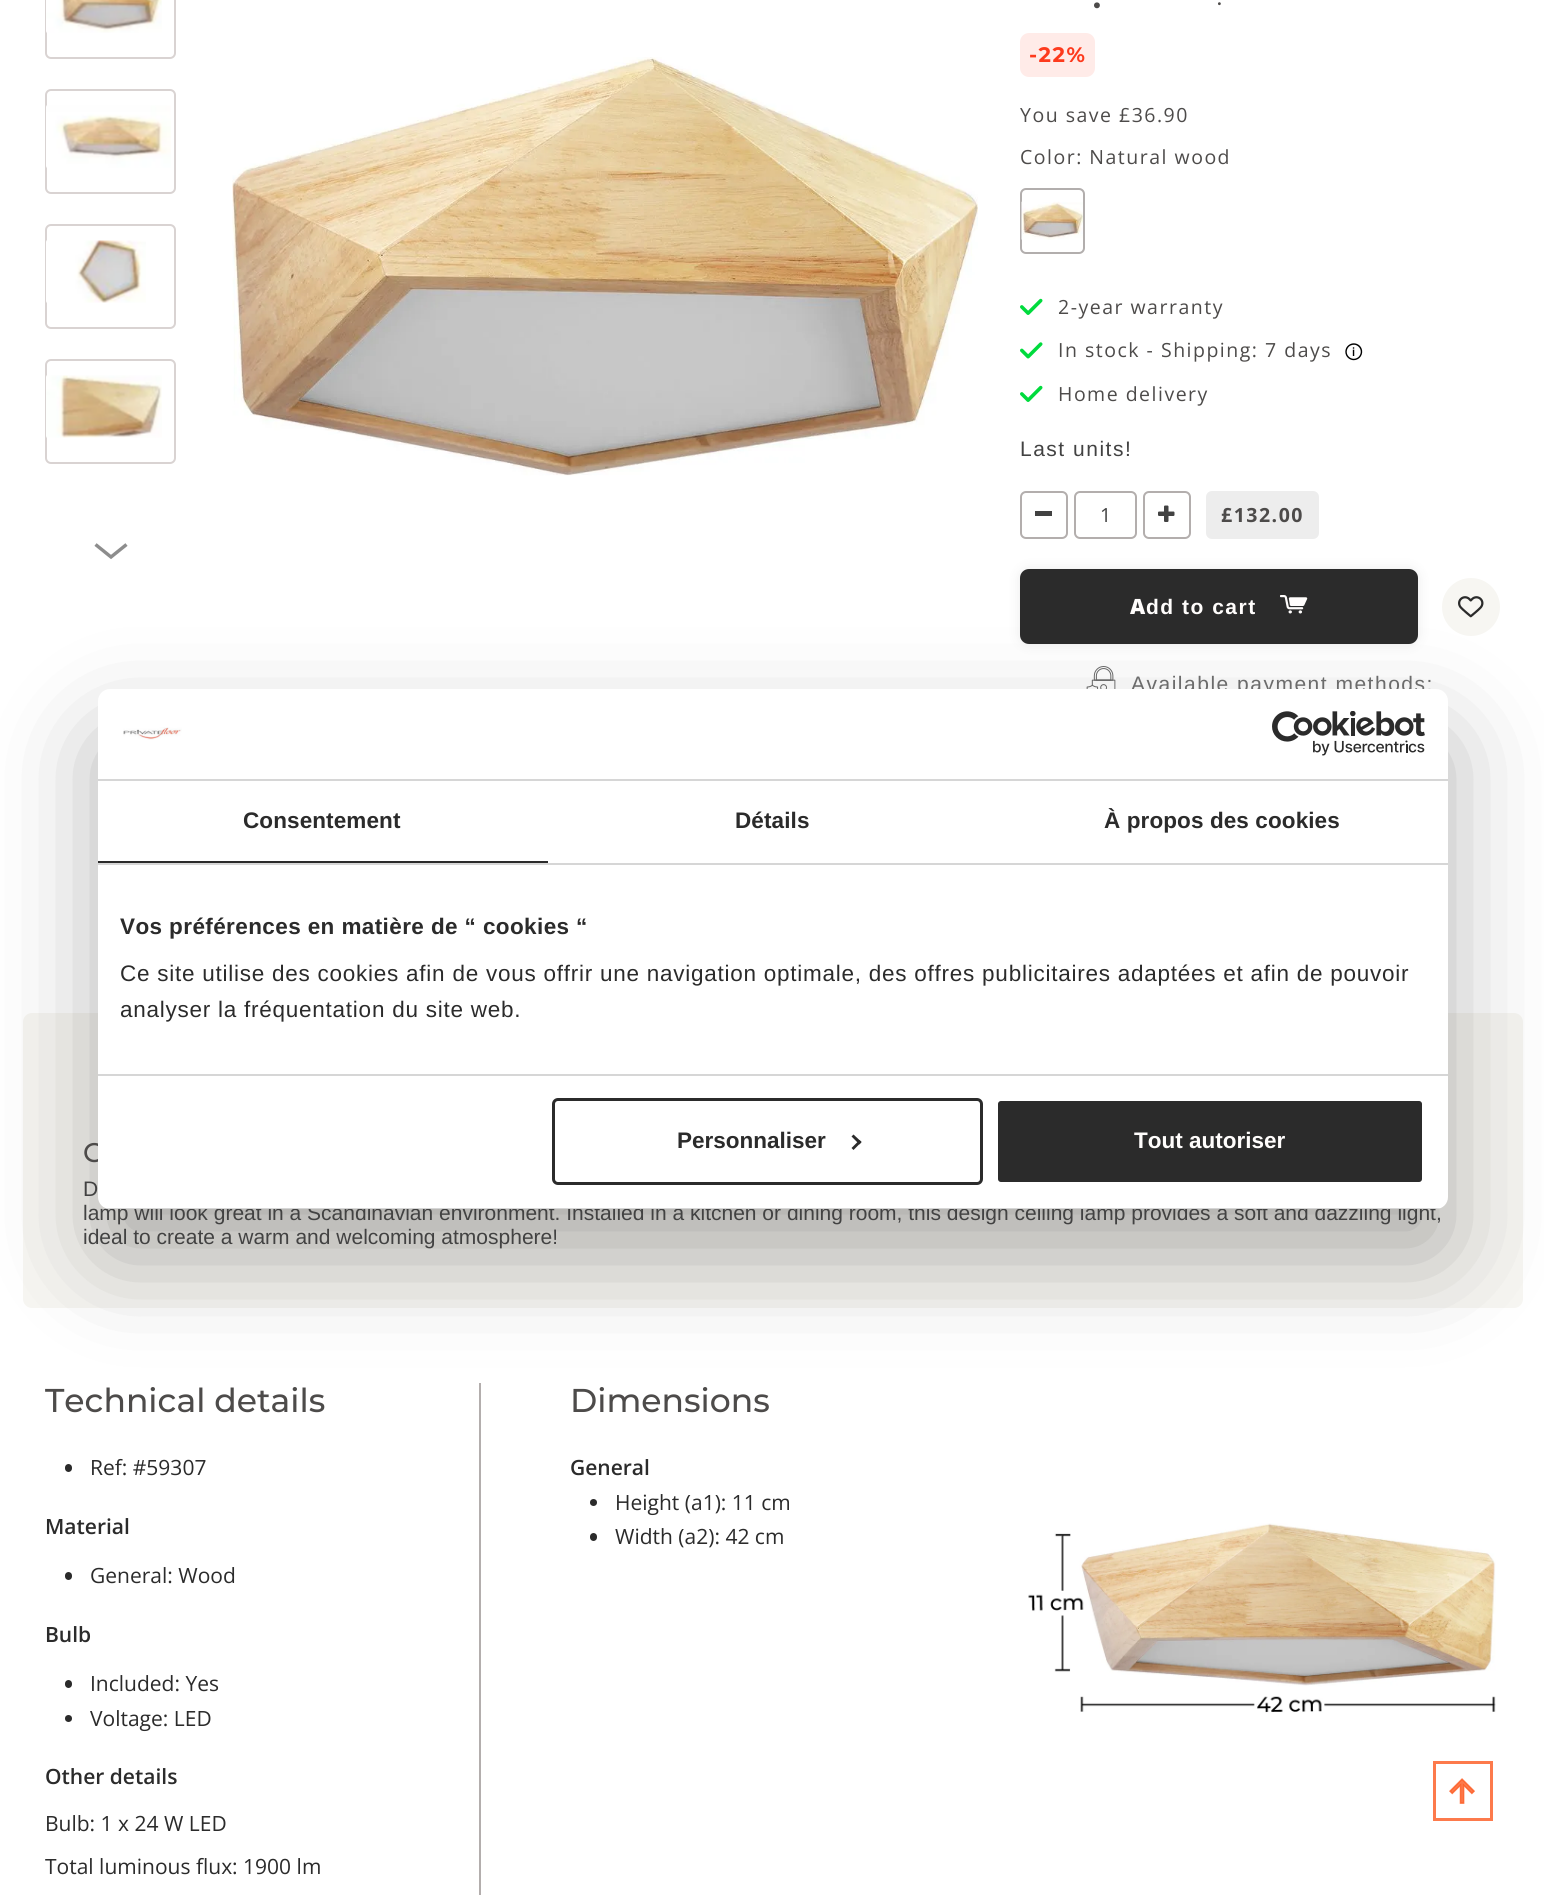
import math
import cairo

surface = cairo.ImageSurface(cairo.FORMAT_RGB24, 1544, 1895)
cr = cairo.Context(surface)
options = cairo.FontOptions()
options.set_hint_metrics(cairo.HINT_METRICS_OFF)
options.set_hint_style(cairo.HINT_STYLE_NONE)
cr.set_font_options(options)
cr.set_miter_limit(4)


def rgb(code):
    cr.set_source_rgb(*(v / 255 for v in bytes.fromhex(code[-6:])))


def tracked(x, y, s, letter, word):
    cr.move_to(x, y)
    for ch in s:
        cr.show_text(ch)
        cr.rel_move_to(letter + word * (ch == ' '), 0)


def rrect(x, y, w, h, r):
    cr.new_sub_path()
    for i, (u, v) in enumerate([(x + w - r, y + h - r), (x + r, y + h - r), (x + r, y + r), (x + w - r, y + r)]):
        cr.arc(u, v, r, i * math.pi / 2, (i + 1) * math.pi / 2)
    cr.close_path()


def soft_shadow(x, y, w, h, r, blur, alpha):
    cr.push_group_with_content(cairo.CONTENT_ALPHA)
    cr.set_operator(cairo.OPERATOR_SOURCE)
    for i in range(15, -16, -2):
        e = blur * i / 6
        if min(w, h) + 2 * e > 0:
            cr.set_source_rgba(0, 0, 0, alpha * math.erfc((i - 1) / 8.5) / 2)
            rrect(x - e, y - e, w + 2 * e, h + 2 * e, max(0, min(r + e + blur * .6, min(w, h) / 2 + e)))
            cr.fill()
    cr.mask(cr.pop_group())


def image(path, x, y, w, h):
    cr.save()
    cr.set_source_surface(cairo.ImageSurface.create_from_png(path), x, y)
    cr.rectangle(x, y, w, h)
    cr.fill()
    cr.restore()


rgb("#ffffff")
cr.paint()
rrect(46, -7, 129, 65, 5)
rgb("#d9d3d2")
cr.stroke()
image("img/1.png", 46, 0, 116, 33)
rrect(46, 90, 129, 103, 5)
cr.stroke()
image("img/2.png", 46, 105, 125, 63)
rrect(46, 225, 129, 103, 5)
cr.stroke()
image("img/3.png", 46, 240, 100, 63)
rrect(46, 360, 129, 103, 5)
cr.stroke()
image("img/4.png", 46, 375, 116, 63)
cr.new_path()
cr.move_to(126.5, 544.5)
cr.line_to(111, 557)
cr.line_to(95.5, 544.5)
rgb("#8d8d8d")
cr.set_line_width(3.4)
cr.stroke()
image("img/5.png", 232, 57, 746, 419)
rgb("#ffebe8")
rrect(1020, 33, 75, 44, 9)
cr.fill()
rrect(1021, 189, 63, 64, 5)
rgb("#b2aead")
cr.set_line_width(2)
cr.stroke()
image("img/6.png", 1021, 201, 62, 39)
image("img/7.png", 1020, 298, 23, 17)
image("img/8.png", 1020, 342, 23, 17)
image("img/9.png", 1345, 343, 18, 18)
image("img/7.png", 1020, 385, 23, 17)
rrect(1021, 492, 46, 46, 5)
rgb("#b3aead")
cr.stroke()
rgb("#424242")
cr.rectangle(1035, 511, 17, 5)
cr.fill()
rrect(1075, 492, 61, 46, 5)
rgb("#b3aead")
cr.stroke()
rrect(1144, 492, 46, 46, 5)
cr.stroke()
image("img/10.png", 1158, 505, 17, 17)
rgb("#ededed")
rrect(1206, 491, 113, 48, 6)
cr.fill()
rgb("#2b2b2b")
soft_shadow(1020, 569, 398, 75, 9, 6, 0.1)
rgb("#2b2b2b")
rrect(1021, 570, 396, 73, 8)
cr.fill_preserve()
cr.stroke()
image("img/11.png", 1280, 595, 28, 19)
rgb("#f7f6f2")
cr.arc(1471, 607, 29, 0, 2 * math.pi)
cr.fill()
image("img/12.png", 1458, 596, 26, 22)
image("img/13.png", 1086, 666, 30, 23)
rrect(23, 1013, 1500, 295, 9)
cr.fill()
rgb("#b3aead")
cr.rectangle(479, 1383, 2, 512)
cr.fill()
rgb("#2b2b2b")
rrect(65, 1464, 7, 8, 3.5)
cr.fill()
rrect(65, 1572, 7, 8, 3.5)
cr.fill()
rrect(65, 1680, 7, 8, 3.5)
cr.fill()
cr.arc(68.5, 1718.5, 3.5, 0, 2 * math.pi)
cr.fill()
cr.arc(593.5, 1502.5, 3.5, 0, 2 * math.pi)
cr.fill()
rrect(590, 1533, 7, 8, 3.5)
cr.fill()
image("img/14.png", 1028, 1523, 468, 190)
cr.rectangle(1434.5, 1762.5, 57, 57)
rgb("#fd7a4c")
cr.set_line_width(3)
cr.stroke()
image("img/15.png", 1449, 1778, 26, 26)
rgb("#000000")
soft_shadow(98, 737, 1350, 520, 12, 51, 0.3)
cr.select_font_face("Montserrat", cairo.FONT_SLANT_NORMAL, cairo.FONT_WEIGHT_BOLD)
cr.set_font_size(30)
rgb("#4d4b4a")
tracked(1093, 8, ".", 1.5, 0)
cr.select_font_face("Montserrat Medium")
cr.set_font_size(21)
tracked(1217, 5, ".", 1.5, 0)
cr.select_font_face("Montserrat", cairo.FONT_SLANT_NORMAL, cairo.FONT_WEIGHT_BOLD)
rgb("#fd3a1d")
tracked(1029, 62, "-22%", 1.5, 0)
cr.select_font_face("Open Sans")
cr.set_font_size(19.5)
rgb("#4d4b4a")
for x, y, s in [
    (1020, 122, "You save £36.90"),
    (1020, 164, "Color: Natural wood"),
    (1058, 314, "2-year warranty"),
    (1058, 357, "In stock - Shipping: 7 days"),
]:
    tracked(x, y, s, 1.5, 0)
cr.select_font_face("Roboto Medium")
cr.set_font_size(12)
rgb("#000000")
cr.move_to(1352, 356)
cr.show_text("i")
cr.select_font_face("Open Sans")
cr.set_font_size(19.5)
rgb("#4d4b4a")
tracked(1058, 401, "Home delivery", 1.5, 0)
cr.select_font_face("Liberation Sans")
cr.set_font_size(21)
rgb("#424242")
tracked(1020, 456, "Last units!", 1.5, 0)
cr.select_font_face("Open Sans")
cr.set_font_size(19.5)
cr.move_to(1100, 522)
cr.show_text("1")
cr.select_font_face("Open Sans", cairo.FONT_SLANT_NORMAL, cairo.FONT_WEIGHT_BOLD)
rgb("#4d4b4a")
tracked(1221, 522, "£132.00", 1.5, 0)
cr.select_font_face("Noto Sans Black")
cr.set_font_size(21)
rgb("#fffdfc")
tracked(1130, 614, "A", 1.5, 0)
cr.select_font_face("Liberation Sans", cairo.FONT_SLANT_NORMAL, cairo.FONT_WEIGHT_BOLD)
tracked(1146, 614, "dd to cart", 1.5, 0)
cr.select_font_face("Liberation Sans")
rgb("#6b6b6b")
tracked(1131, 691, "Available payment methods:", 1.5, 0)
cr.select_font_face("Montserrat Medium")
cr.set_font_size(27)
rgb("#4d4b4a")
cr.move_to(83, 1162)
cr.show_text("C")
cr.select_font_face("Liberation Sans")
cr.set_font_size(21)
rgb("#424242")
for x, y, s in [
    (83, 1196, "D"),
    (83, 1220, "lamp will look great in a Scandinavian environment. Installed in a kitchen or dining room, this design ceiling lamp provides a soft and dazzling light,"),
    (83, 1244, "ideal to create a warm and welcoming atmosphere!"),
]:
    cr.move_to(x, y)
    cr.show_text(s)
cr.select_font_face("Montserrat Medium")
cr.set_font_size(33)
rgb("#4d4b4a")
cr.move_to(45, 1412)
cr.show_text("Technical details")
cr.select_font_face("Open Sans")
cr.set_font_size(21)
rgb("#2b2b2b")
cr.move_to(90, 1475)
cr.show_text("Ref: #59307")
cr.select_font_face("Open Sans SemiBold")
cr.move_to(45, 1534)
cr.show_text("Material")
cr.select_font_face("Open Sans")
cr.move_to(90, 1583)
cr.show_text("General: Wood")
cr.select_font_face("Open Sans SemiBold")
cr.move_to(45, 1642)
cr.show_text("Bulb")
cr.select_font_face("Open Sans")
cr.move_to(90, 1691)
cr.show_text("Included: Yes")
cr.move_to(90, 1726)
cr.show_text("Voltage: LED")
cr.select_font_face("Open Sans SemiBold")
cr.move_to(45, 1784)
cr.show_text("Other details")
cr.select_font_face("Open Sans")
cr.move_to(45, 1831)
cr.show_text("Bulb: 1 x 24 W LED")
cr.move_to(45, 1874)
cr.show_text("Total luminous flux: 1900 lm")
cr.select_font_face("Montserrat Medium")
cr.set_font_size(33)
rgb("#4d4b4a")
cr.move_to(570, 1412)
cr.show_text("Dimensions")
cr.select_font_face("Open Sans SemiBold")
cr.set_font_size(21)
rgb("#2b2b2b")
cr.move_to(570, 1475)
cr.show_text("General")
cr.select_font_face("Open Sans")
cr.move_to(615, 1510)
cr.show_text("Height (a1): 11 cm")
cr.move_to(615, 1544)
cr.show_text("Width (a2): 42 cm")
rgb("#ffffff")
rrect(98, 689, 1350, 520, 12)
cr.fill()
rgb("#d6d6d6")
cr.rectangle(98, 779, 1350, 2)
cr.fill()
image("img/16.png", 123, 727, 59, 13)
image("img/17.png", 1272, 711, 153, 45)
cr.rectangle(98, 863, 1350, 2)
cr.fill()
rgb("#2b2b2b")
cr.rectangle(98, 861, 450, 2)
cr.fill()
cr.select_font_face("Liberation Sans", cairo.FONT_SLANT_NORMAL, cairo.FONT_WEIGHT_BOLD)
cr.set_font_size(22.5)
for x, y, s in [
    (243, 828, "Consentement"),
    (735, 828, "Détails"),
    (1104, 828, "À propos des cookies"),
]:
    tracked(x, y, s, 0.1, 0)
rgb("#d6d6d6")
cr.rectangle(98, 1074, 1350, 2)
cr.fill()
rgb("#2b2b2b")
tracked(120, 934, "Vos préférences en matière de “ cookies “", 0.4, 0)
cr.select_font_face("Liberation Sans")
tracked(120, 981, "Ce site utilise des cookies afin de vous offrir une navigation optimale, des offres publicitaires adaptées et afin de pouvoir", 0.75, 0)
tracked(120, 1017, "analyser la fréquentation du site web.", 0.75, 0)
cr.save()
rrect(98, 689, 1350, 520, 12)
cr.clip()
rgb("#d6d6d6")
cr.rectangle(98, 1208, 1350, 1)
cr.fill()
cr.restore()
rrect(553.5, 1099.5, 428, 84, 4.5)
cr.stroke()
cr.select_font_face("Liberation Sans", cairo.FONT_SLANT_NORMAL, cairo.FONT_WEIGHT_BOLD)
cr.move_to(677, 1148)
cr.show_text("Personnaliser")
cr.new_path()
cr.move_to(853.5, 1134.5)
cr.line_to(861.5, 1142)
cr.line_to(859.5, 1144.5)
cr.line_to(851.5, 1136.5)
cr.close_path()
cr.fill()
cr.new_path()
cr.move_to(859.5, 1140)
cr.line_to(861.5, 1142)
cr.line_to(853.5, 1150)
cr.line_to(851.5, 1148)
cr.close_path()
cr.fill()
rrect(996.5, 1099.5, 427, 84, 4.5)
cr.fill_preserve()
rgb("#ffffff")
cr.stroke()
rgb("#fffdfc")
cr.move_to(1134, 1148)
cr.show_text("Tout autoriser")
surface.write_to_png("page.png")
